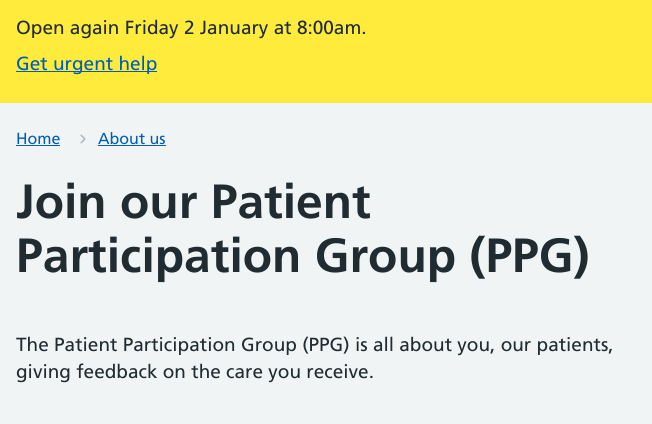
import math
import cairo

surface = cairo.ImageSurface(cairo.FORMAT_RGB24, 652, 424)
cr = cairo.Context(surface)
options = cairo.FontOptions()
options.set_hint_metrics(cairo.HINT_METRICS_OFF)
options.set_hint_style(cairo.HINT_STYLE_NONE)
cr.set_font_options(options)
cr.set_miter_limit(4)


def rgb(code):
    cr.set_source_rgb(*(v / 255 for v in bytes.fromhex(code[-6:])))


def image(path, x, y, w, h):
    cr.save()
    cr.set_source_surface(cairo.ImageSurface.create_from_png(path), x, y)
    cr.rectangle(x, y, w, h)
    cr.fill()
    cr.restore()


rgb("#f0f4f5")
cr.paint()
for x, y, w, h, color in [
    (0, 0, 652, 103, "#ffeb3b"),
    (16, 71, 141, 1, "#005eb8"),
    (16, 145, 44, 1, "#005eb8"),
]:
    rgb(color)
    cr.rectangle(x, y, w, h)
    cr.fill()
image("img/1.png", 80, 134, 6, 10)
cr.rectangle(98, 145, 68, 1)
cr.fill()
cr.select_font_face("Frutiger")
cr.set_font_size(19)
rgb("#212b32")
cr.move_to(16, 34)
cr.show_text("Open again Friday 2 January at 8:00am.")
rgb("#005eb8")
cr.move_to(16, 70)
cr.show_text("Get urgent help")
cr.set_font_size(16)
cr.move_to(16, 144)
cr.show_text("Home")
cr.move_to(98, 144)
cr.show_text("About us")
cr.select_font_face("Frutiger", cairo.FONT_SLANT_NORMAL, cairo.FONT_WEIGHT_BOLD)
cr.set_font_size(48)
rgb("#212b32")
cr.move_to(16, 218)
cr.show_text("Join our Patient")
cr.move_to(16, 272)
cr.show_text("Participation Group (PPG)")
cr.select_font_face("Frutiger")
cr.set_font_size(19)
cr.move_to(16, 351)
cr.show_text("The Patient Participation Group (PPG) is all about you, our patients,")
cr.move_to(16, 378)
cr.show_text("giving feedback on the care you receive.")
surface.write_to_png("page.png")
